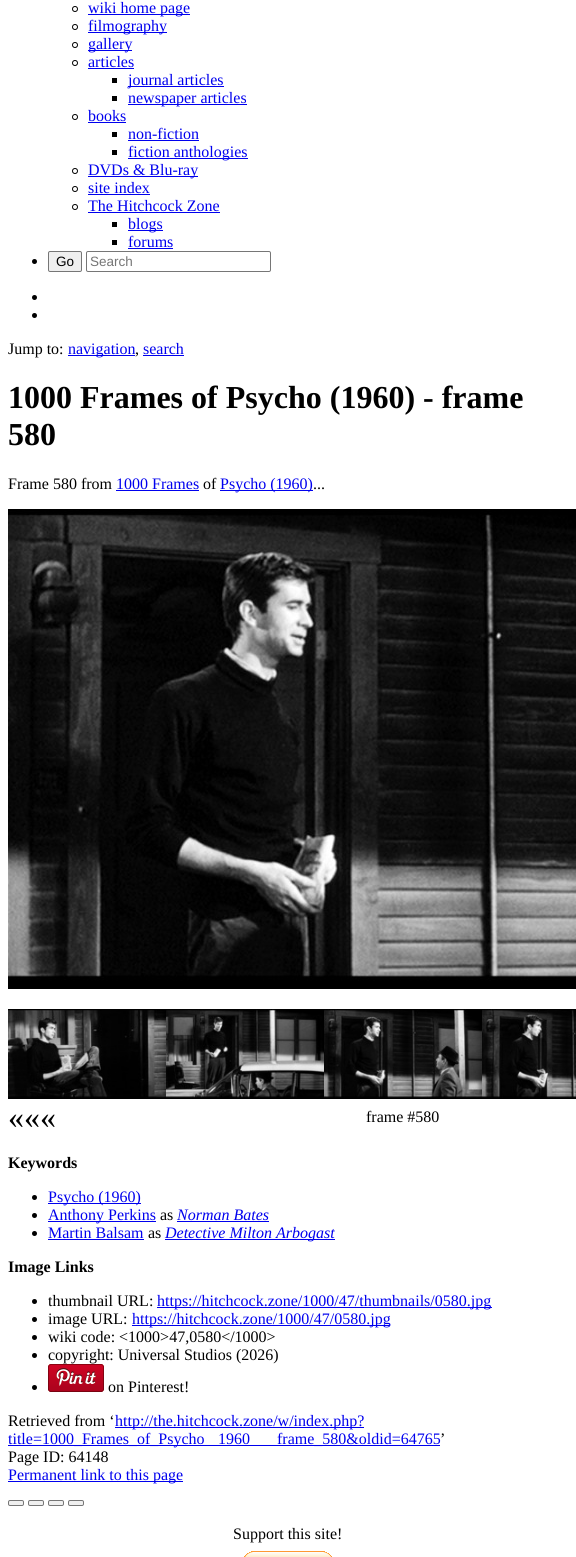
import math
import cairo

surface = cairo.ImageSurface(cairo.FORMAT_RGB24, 576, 1557)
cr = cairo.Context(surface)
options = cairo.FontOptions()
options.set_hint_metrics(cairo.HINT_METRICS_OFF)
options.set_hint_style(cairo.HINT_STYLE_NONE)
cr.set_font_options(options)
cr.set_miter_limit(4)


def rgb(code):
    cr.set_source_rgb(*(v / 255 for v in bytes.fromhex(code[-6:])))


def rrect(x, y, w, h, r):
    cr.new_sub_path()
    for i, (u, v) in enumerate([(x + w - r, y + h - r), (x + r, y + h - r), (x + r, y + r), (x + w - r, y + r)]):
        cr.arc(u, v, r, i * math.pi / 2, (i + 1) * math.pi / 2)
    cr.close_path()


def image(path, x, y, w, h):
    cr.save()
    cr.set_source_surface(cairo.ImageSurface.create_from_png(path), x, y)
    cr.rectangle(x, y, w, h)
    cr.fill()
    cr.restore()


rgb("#ffffff")
cr.paint()
cr.arc(75, 9, 2.5, 0, 2 * math.pi)
rgb("#000000")
cr.set_line_width(1)
cr.stroke()
rgb("#0000ee")
cr.rectangle(88, 14, 102, 1)
cr.fill()
cr.arc(75, 27, 2.5, 0, 2 * math.pi)
rgb("#000000")
cr.stroke()
rgb("#0000ee")
cr.rectangle(88, 32, 79, 1)
cr.fill()
cr.arc(75, 45, 2.5, 0, 2 * math.pi)
rgb("#000000")
cr.stroke()
rgb("#0000ee")
cr.rectangle(88, 50, 44, 1)
cr.fill()
cr.arc(75, 63, 2.5, 0, 2 * math.pi)
rgb("#000000")
cr.stroke()
for x, y, w, h, color in [
    (88, 68, 46, 1, "#0000ee"),
    (112, 78, 5, 5, "#000000"),
    (128, 86, 96, 1, "#0000ee"),
    (112, 96, 5, 5, "#000000"),
    (128, 104, 119, 1, "#0000ee"),
]:
    rgb(color)
    cr.rectangle(x, y, w, h)
    cr.fill()
cr.arc(75, 117, 2.5, 0, 2 * math.pi)
rgb("#000000")
cr.stroke()
for x, y, w, h, color in [
    (88, 122, 38, 1, "#0000ee"),
    (112, 132, 5, 5, "#000000"),
    (128, 140, 71, 1, "#0000ee"),
    (112, 150, 5, 5, "#000000"),
    (128, 158, 120, 1, "#0000ee"),
]:
    rgb(color)
    cr.rectangle(x, y, w, h)
    cr.fill()
cr.arc(75, 171, 2.5, 0, 2 * math.pi)
rgb("#000000")
cr.stroke()
rgb("#0000ee")
cr.rectangle(88, 176, 110, 1)
cr.fill()
cr.arc(75, 189, 2.5, 0, 2 * math.pi)
rgb("#000000")
cr.stroke()
rgb("#0000ee")
cr.rectangle(88, 194, 62, 1)
cr.fill()
cr.arc(75, 207, 2.5, 0, 2 * math.pi)
rgb("#000000")
cr.stroke()
for x, y, w, h, color in [
    (88, 212, 132, 1, "#0000ee"),
    (112, 222, 5, 5, "#000000"),
    (128, 230, 35, 1, "#0000ee"),
    (112, 240, 5, 5, "#000000"),
    (128, 248, 45, 1, "#0000ee"),
]:
    rgb(color)
    cr.rectangle(x, y, w, h)
    cr.fill()
rgb("#000000")
cr.arc(34.5, 261.5, 2.5, 0, 2 * math.pi)
cr.fill()
rgb("#efefef")
rrect(48.5, 251.5, 33, 20, 1.5)
cr.fill_preserve()
rgb("#767676")
cr.stroke()
rrect(86.5, 251.5, 184, 20, 1.5)
cr.stroke()
rgb("#000000")
cr.arc(34.5, 297.5, 2.5, 0, 2 * math.pi)
cr.fill()
cr.arc(34.5, 315.5, 2.5, 0, 2 * math.pi)
cr.fill()
for x, y, w, h, color in [
    (68, 355, 67, 1, "#0000ee"),
    (143, 355, 41, 1, "#0000ee"),
    (116, 490, 83, 1, "#0000ee"),
    (220, 490, 93, 1, "#0000ee"),
]:
    rgb(color)
    cr.rectangle(x, y, w, h)
    cr.fill()
image("img/1.png", 8, 509, 568, 480)
rgb("#000000")
cr.rectangle(8, 1009, 158, 90)
cr.fill()
image("img/2.png", 8, 1010, 158, 88)
image("img/3.png", 166, 1009, 158, 89)
cr.rectangle(166, 1098, 410, 1)
cr.fill()
image("img/4.png", 324, 1009, 158, 89)
image("img/5.png", 482, 1009, 94, 89)
cr.arc(34.5, 1197.5, 2.5, 0, 2 * math.pi)
cr.fill()
rgb("#0000ee")
cr.rectangle(48, 1203, 93, 1)
cr.fill()
rgb("#000000")
cr.arc(34.5, 1215.5, 2.5, 0, 2 * math.pi)
cr.fill()
rgb("#0000ee")
cr.rectangle(48, 1221, 108, 1)
cr.fill()
cr.rectangle(177, 1221, 92, 1)
cr.fill()
rgb("#000000")
cr.arc(34.5, 1233.5, 2.5, 0, 2 * math.pi)
cr.fill()
rgb("#0000ee")
cr.rectangle(48, 1239, 96, 1)
cr.fill()
cr.rectangle(165, 1239, 170, 1)
cr.fill()
rgb("#000000")
cr.arc(34.5, 1301.5, 2.5, 0, 2 * math.pi)
cr.fill()
rgb("#0000ee")
cr.rectangle(157, 1307, 335, 1)
cr.fill()
rgb("#000000")
cr.arc(34.5, 1319.5, 2.5, 0, 2 * math.pi)
cr.fill()
rgb("#0000ee")
cr.rectangle(132, 1325, 258, 1)
cr.fill()
rgb("#000000")
cr.arc(34.5, 1337.5, 2.5, 0, 2 * math.pi)
cr.fill()
cr.arc(34.5, 1355.5, 2.5, 0, 2 * math.pi)
cr.fill()
cr.arc(34.5, 1387.5, 2.5, 0, 2 * math.pi)
cr.fill()
image("img/6.png", 48, 1364, 56, 28)
for x, y, w, h, color in [
    (115, 1427, 249, 1, "#0000ee"),
    (8, 1445, 432, 1, "#0000ee"),
    (8, 1481, 175, 1, "#0000ee"),
]:
    rgb(color)
    cr.rectangle(x, y, w, h)
    cr.fill()
rgb("#efefef")
rrect(8.5, 1500.5, 15, 5, 1.5)
cr.fill_preserve()
rgb("#767676")
cr.stroke()
rgb("#efefef")
rrect(28.5, 1500.5, 15, 5, 1.5)
cr.fill_preserve()
rgb("#767676")
cr.stroke()
rgb("#efefef")
rrect(48.5, 1500.5, 15, 5, 1.5)
cr.fill_preserve()
rgb("#767676")
cr.stroke()
rgb("#efefef")
rrect(68.5, 1500.5, 15, 5, 1.5)
cr.fill_preserve()
rgb("#767676")
cr.stroke()
image("img/7.png", 244, 1551, 88, 6)
cr.select_font_face("Liberation Serif")
cr.set_font_size(16)
rgb("#0000ee")
for x, y, s in [
    (88, 13, "wiki home page"),
    (88, 31, "filmography"),
    (88, 49, "gallery"),
    (88, 67, "articles"),
    (128, 85, "journal articles"),
    (128, 103, "newspaper articles"),
    (88, 121, "books"),
    (128, 139, "non-fiction"),
    (128, 157, "fiction anthologies"),
    (88, 175, "DVDs & Blu-ray"),
    (88, 193, "site index"),
    (88, 211, "The Hitchcock Zone"),
    (128, 229, "blogs"),
    (128, 247, "forums"),
]:
    cr.move_to(x, y)
    cr.show_text(s)
cr.select_font_face("Liberation Sans")
cr.set_font_size(13.5)
rgb("#000000")
cr.move_to(56, 266)
cr.show_text("Go")
rgb("#757575")
cr.move_to(90, 266)
cr.show_text("Search")
cr.select_font_face("Liberation Serif")
cr.set_font_size(16)
rgb("#000000")
cr.move_to(8, 354)
cr.show_text("Jump to:")
rgb("#0000ee")
cr.move_to(68, 354)
cr.show_text("navigation")
rgb("#000000")
cr.move_to(135, 354)
cr.show_text(",")
rgb("#0000ee")
cr.move_to(143, 354)
cr.show_text("search")
cr.select_font_face("Liberation Serif", cairo.FONT_SLANT_NORMAL, cairo.FONT_WEIGHT_BOLD)
cr.set_font_size(32)
rgb("#000000")
cr.move_to(8, 408)
cr.show_text("1000 Frames of Psycho (1960) - frame")
cr.move_to(8, 445)
cr.show_text("580")
cr.select_font_face("Liberation Serif")
cr.set_font_size(16)
cr.move_to(8, 489)
cr.show_text("Frame 580 from")
rgb("#0000ee")
cr.move_to(116, 489)
cr.show_text("1000 Frames")
rgb("#000000")
cr.move_to(203, 489)
cr.show_text("of")
rgb("#0000ee")
cr.move_to(220, 489)
cr.show_text("Psycho (1960)")
rgb("#000000")
cr.move_to(313, 489)
cr.show_text("...")
cr.set_font_size(32)
cr.move_to(8, 1128)
cr.show_text("«««")
cr.set_font_size(16)
cr.move_to(366, 1122)
cr.show_text("frame #580")
cr.select_font_face("Liberation Serif", cairo.FONT_SLANT_NORMAL, cairo.FONT_WEIGHT_BOLD)
cr.move_to(8, 1168)
cr.show_text("Keywords")
cr.select_font_face("Liberation Serif")
rgb("#0000ee")
cr.move_to(48, 1202)
cr.show_text("Psycho (1960)")
cr.move_to(48, 1220)
cr.show_text("Anthony Perkins")
rgb("#000000")
cr.move_to(160, 1220)
cr.show_text("as")
cr.select_font_face("Liberation Serif", cairo.FONT_SLANT_ITALIC)
rgb("#0000ee")
cr.move_to(177, 1220)
cr.show_text("Norman Bates")
cr.select_font_face("Liberation Serif")
cr.move_to(48, 1238)
cr.show_text("Martin Balsam")
rgb("#000000")
cr.move_to(148, 1238)
cr.show_text("as")
cr.select_font_face("Liberation Serif", cairo.FONT_SLANT_ITALIC)
rgb("#0000ee")
cr.move_to(165, 1238)
cr.show_text("Detective Milton Arbogast")
cr.select_font_face("Liberation Serif", cairo.FONT_SLANT_NORMAL, cairo.FONT_WEIGHT_BOLD)
rgb("#000000")
cr.move_to(8, 1272)
cr.show_text("Image Links")
cr.select_font_face("Liberation Serif")
cr.move_to(48, 1306)
cr.show_text("thumbnail URL:")
rgb("#0000ee")
cr.move_to(157, 1306)
cr.show_text("https://hitchcock.zone/1000/47/thumbnails/0580.jpg")
rgb("#000000")
cr.move_to(48, 1324)
cr.show_text("image URL:")
rgb("#0000ee")
cr.move_to(132, 1324)
cr.show_text("https://hitchcock.zone/1000/47/0580.jpg")
rgb("#000000")
for x, y, s in [
    (48, 1342, "wiki code: <1000>47,0580</1000>"),
    (48, 1360, "copyright: Universal Studios (2026)"),
    (108, 1392, "on Pinterest!"),
    (8, 1426, "Retrieved from ‘"),
]:
    cr.move_to(x, y)
    cr.show_text(s)
rgb("#0000ee")
for x, y, s in [
    (115, 1426, "http://the.hitchcock.zone/w/index.php?"),
    (8, 1444, "title=1000_Frames_of_Psycho"),
    (218, 1444, "1960"),
    (277, 1444, "frame_580&oldid=64765"),
]:
    cr.move_to(x, y)
    cr.show_text(s)
rgb("#000000")
cr.move_to(440, 1444)
cr.show_text("’")
cr.move_to(8, 1462)
cr.show_text("Page ID: 64148")
rgb("#0000ee")
cr.move_to(8, 1480)
cr.show_text("Permanent link to this page")
rgb("#000000")
cr.move_to(233, 1539)
cr.show_text("Support this site!")
surface.write_to_png("page.png")
